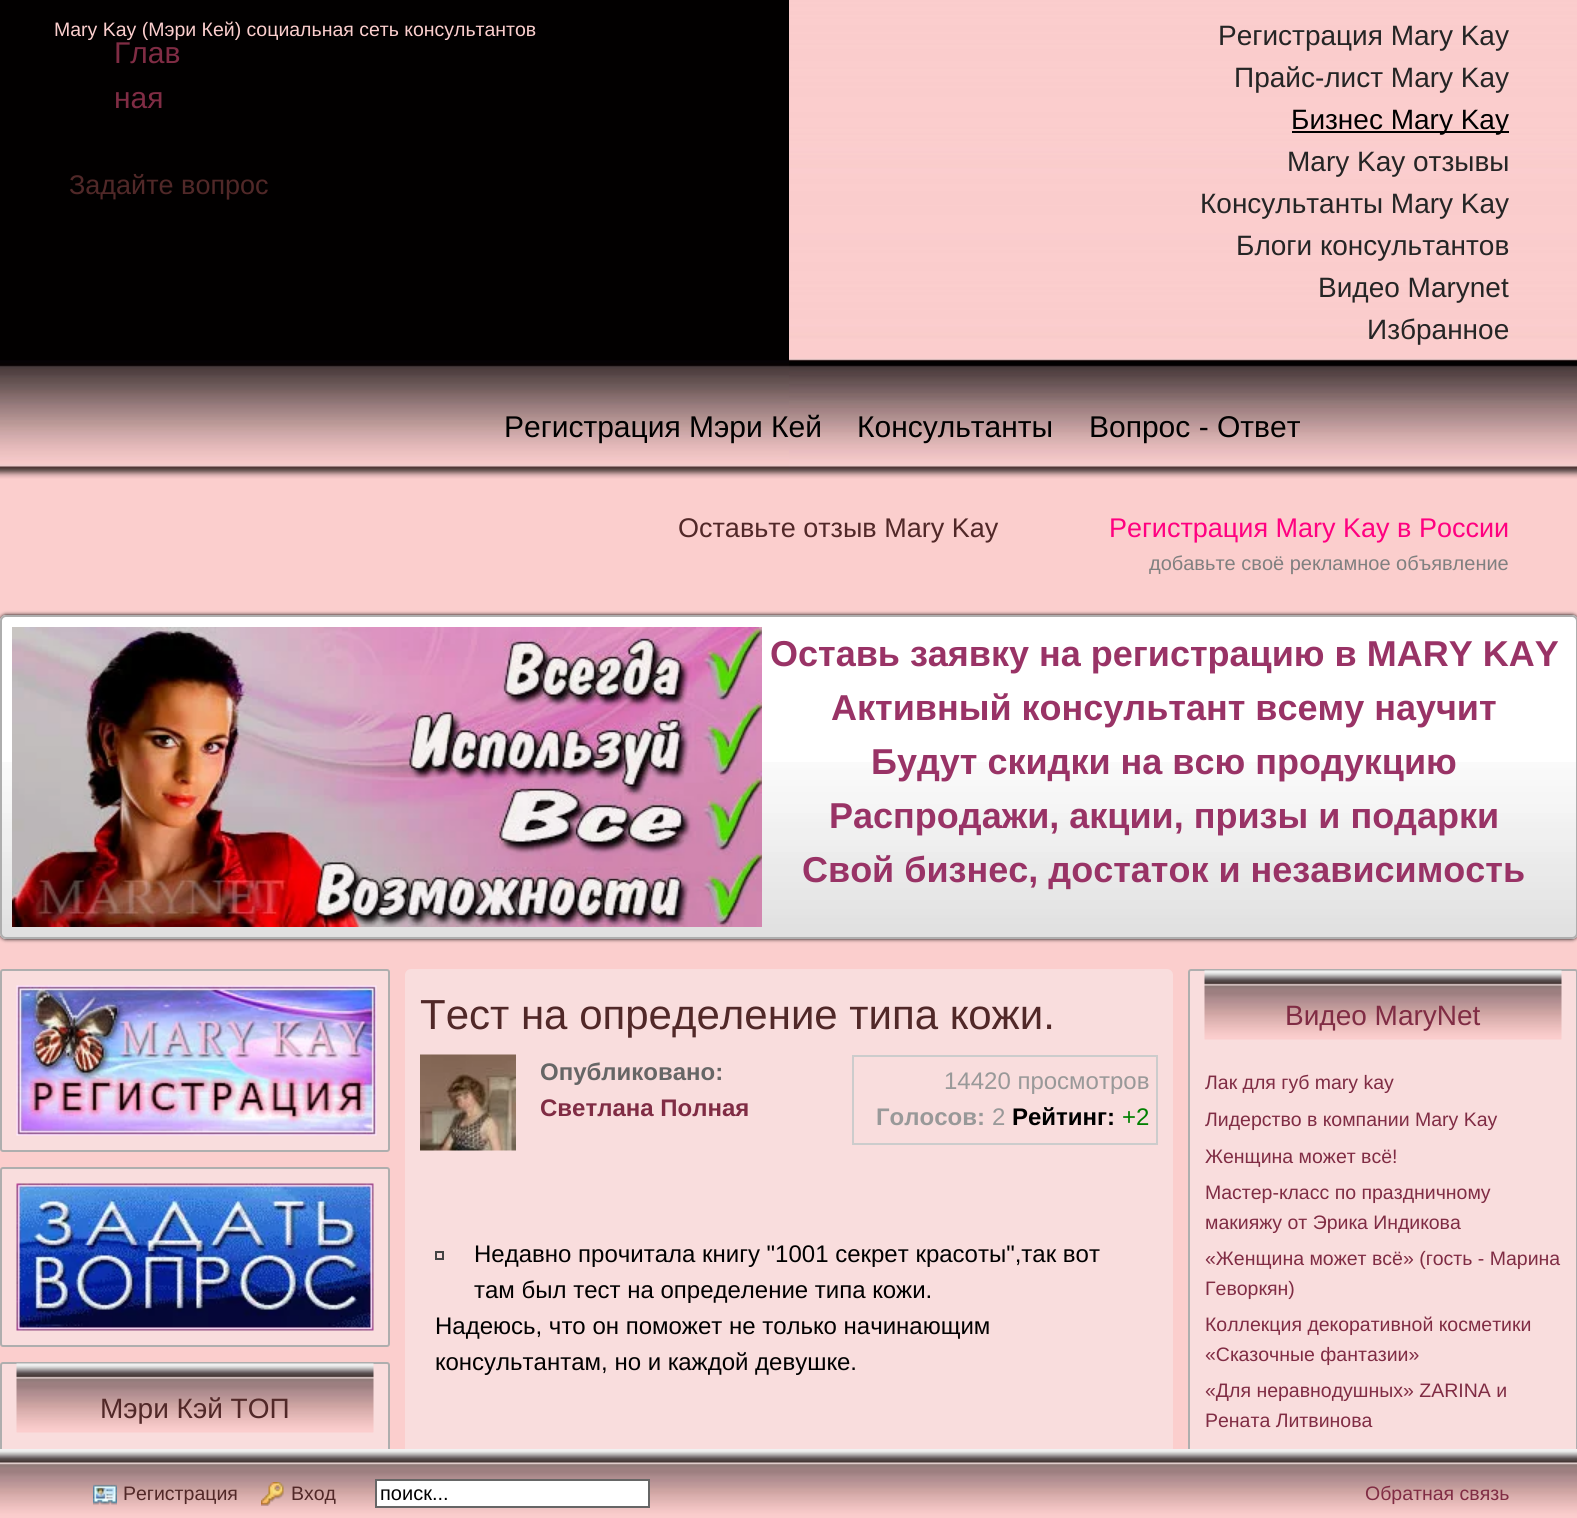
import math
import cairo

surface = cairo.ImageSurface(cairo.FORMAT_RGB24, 1577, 1518)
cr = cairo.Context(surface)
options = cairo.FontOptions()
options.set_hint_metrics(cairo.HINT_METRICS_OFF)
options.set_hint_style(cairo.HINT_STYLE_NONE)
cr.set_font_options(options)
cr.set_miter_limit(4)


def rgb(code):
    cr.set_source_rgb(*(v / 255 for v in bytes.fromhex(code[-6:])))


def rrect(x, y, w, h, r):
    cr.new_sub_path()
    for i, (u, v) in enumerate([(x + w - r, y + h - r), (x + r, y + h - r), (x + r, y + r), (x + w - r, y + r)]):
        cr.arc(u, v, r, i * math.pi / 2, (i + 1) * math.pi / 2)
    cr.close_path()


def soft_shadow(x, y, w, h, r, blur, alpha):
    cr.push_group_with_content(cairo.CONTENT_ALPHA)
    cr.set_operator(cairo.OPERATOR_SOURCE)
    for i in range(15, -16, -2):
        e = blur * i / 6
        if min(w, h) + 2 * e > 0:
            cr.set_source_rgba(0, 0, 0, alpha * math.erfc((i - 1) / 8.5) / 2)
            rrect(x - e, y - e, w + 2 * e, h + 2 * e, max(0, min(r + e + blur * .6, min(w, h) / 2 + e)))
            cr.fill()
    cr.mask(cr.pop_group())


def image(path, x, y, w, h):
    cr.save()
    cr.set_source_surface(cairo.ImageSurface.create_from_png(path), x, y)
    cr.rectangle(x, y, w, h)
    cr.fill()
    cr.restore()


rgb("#fbcecd")
cr.paint()
image("img/1.png", 0, 0, 789, 479)
image("img/2.png", 789, 0, 788, 479)
rgb("#000000")
cr.rectangle(1292, 131, 217, 2)
cr.fill()
rgb("#000000")
soft_shadow(0, 615, 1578, 324, 6, 2, 1)
rgb("#ffffff")
rrect(0, 615, 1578, 324, 6)
cr.fill()
image("img/3.png", 0, 762, 1577, 176)
rrect(1, 616, 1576, 322, 5)
rgb("#aeaeae")
cr.stroke()
image("img/4.png", 12, 627, 750, 300)
rgb("#f9dddd")
rrect(1, 970, 388, 181, 2)
cr.fill_preserve()
rgb("#aeaeae")
cr.stroke()
image("img/5.png", 16, 985, 361, 151)
rgb("#f9dddd")
rrect(1, 1168, 388, 178, 2)
cr.fill_preserve()
rgb("#aeaeae")
cr.stroke()
image("img/6.png", 16, 1183, 358, 148)
rgb("#f9dddd")
rrect(1, 1363, 388, 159, 2)
cr.fill_preserve()
rgb("#aeaeae")
cr.stroke()
image("img/7.png", 16, 1363, 358, 70)
rgb("#f9dddd")
rrect(405, 969, 768, 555, 6)
cr.fill()
image("img/8.png", 420, 1054, 96, 97)
cr.rectangle(853, 1056, 304, 88)
rgb("#cccccc")
cr.stroke()
cr.rectangle(436, 1252, 7, 7)
rgb("#444444")
cr.stroke()
rgb("#f9dddd")
rrect(1189, 970, 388, 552, 2)
cr.fill_preserve()
rgb("#aeaeae")
cr.stroke()
image("img/7.png", 1204, 970, 358, 70)
image("img/9.png", 0, 1449, 1577, 69)
image("img/10.png", 93, 1484, 24, 21)
image("img/11.png", 261, 1482, 23, 24)
rgb("#ffffff")
cr.rectangle(376, 1480, 273, 27)
cr.fill_preserve()
rgb("#666666")
cr.stroke()
cr.select_font_face("Liberation Sans")
cr.set_font_size(19.5)
rgb("#fbcecd")
cr.move_to(54, 36)
cr.show_text("Mary Kay (Мэри Кей) социальная сеть консультантов")
cr.set_font_size(30)
rgb("#802c44")
cr.move_to(114, 63)
cr.show_text("Глав")
cr.move_to(114, 108)
cr.show_text("ная")
cr.set_font_size(27)
rgb("#512828")
cr.move_to(69, 194)
cr.show_text("Задайте вопрос")
cr.set_font_size(28)
rgb("#252525")
cr.move_to(1218, 45)
cr.show_text("Регистрация Mary Kay")
cr.move_to(1234, 87)
cr.show_text("Прайс-лист Mary Kay")
rgb("#000000")
cr.move_to(1291, 129)
cr.show_text("Бизнес Mary Kay")
rgb("#252525")
for x, y, s in [
    (1287, 171, "Mary Kay отзывы"),
    (1200, 213, "Консультанты Mary Kay"),
    (1236, 255, "Блоги консультантов"),
    (1318, 297, "Видео Marynet"),
    (1367, 339, "Избранное"),
]:
    cr.move_to(x, y)
    cr.show_text(s)
cr.set_font_size(30)
rgb("#000000")
for x, y, s in [
    (504, 437, "Регистрация Мэри Кей"),
    (857, 437, "Консультанты"),
    (1089, 437, "Вопрос - Ответ"),
]:
    cr.move_to(x, y)
    cr.show_text(s)
cr.set_font_size(27)
rgb("#512828")
cr.move_to(678, 537)
cr.show_text("Оставьте отзыв Mary Kay")
rgb("#ff0080")
cr.move_to(1109, 537)
cr.show_text("Регистрация Mary Kay в России")
cr.set_font_size(20)
rgb("#808080")
cr.move_to(1149, 570)
cr.show_text("добавьте своё рекламное объявление")
cr.select_font_face("Liberation Sans", cairo.FONT_SLANT_NORMAL, cairo.FONT_WEIGHT_BOLD)
cr.set_font_size(36)
rgb("#993366")
for x, y, s in [
    (770, 666, "Оставь заявку на регистрацию в MARY KAY"),
    (831, 720, "Активный консультант всему научит"),
    (871, 774, "Будут скидки на всю продукцию"),
    (829, 828, "Распродажи, акции, призы и подарки"),
    (802, 882, "Свой бизнес, достаток и независимость"),
]:
    cr.move_to(x, y)
    cr.show_text(s)
cr.select_font_face("Liberation Sans")
cr.set_font_size(28)
rgb("#512828")
cr.move_to(100, 1418)
cr.show_text("Мэри Кэй ТОП")
cr.set_font_size(42)
cr.move_to(420, 1029)
cr.show_text("Тест на определение типа кожи.")
cr.select_font_face("Liberation Sans", cairo.FONT_SLANT_NORMAL, cairo.FONT_WEIGHT_BOLD)
cr.set_font_size(24)
rgb("#666666")
cr.move_to(540, 1080)
cr.show_text("Опубликовано:")
rgb("#802c44")
cr.move_to(540, 1116)
cr.show_text("Светлана Полная")
cr.select_font_face("Liberation Sans")
rgb("#999999")
cr.move_to(944, 1089)
cr.show_text("14420 просмотров")
cr.select_font_face("Liberation Sans", cairo.FONT_SLANT_NORMAL, cairo.FONT_WEIGHT_BOLD)
cr.move_to(876, 1125)
cr.show_text("Голосов:")
cr.select_font_face("Liberation Sans")
cr.move_to(992, 1125)
cr.show_text("2")
cr.select_font_face("Liberation Sans", cairo.FONT_SLANT_NORMAL, cairo.FONT_WEIGHT_BOLD)
rgb("#000000")
cr.move_to(1012, 1125)
cr.show_text("Рейтинг:")
cr.select_font_face("Liberation Sans")
rgb("#008000")
cr.move_to(1122, 1125)
cr.show_text("+2")
rgb("#000000")
for x, y, s in [
    (474, 1262, "Недавно прочитала книгу \"1001 секрет красоты\",так вот"),
    (474, 1298, "там был тест на определение типа кожи."),
    (435, 1334, "Надеюсь, что он поможет не только начинающим"),
    (435, 1370, "консультантам, но и каждой девушке."),
]:
    cr.move_to(x, y)
    cr.show_text(s)
cr.set_font_size(28)
rgb("#802c44")
cr.move_to(1285, 1025)
cr.show_text("Видео MaryNet")
cr.set_font_size(19.5)
for x, y, s in [
    (1205, 1089, "Лак для губ mary kay"),
    (1205, 1126, "Лидерство в компании Mary Kay"),
    (1205, 1163, "Женщина может всё!"),
    (1205, 1199, "Мастер-класс по праздничному"),
    (1205, 1229, "макияжу от Эрика Индикова"),
    (1205, 1265, "«Женщина может всё» (гость - Марина"),
    (1205, 1295, "Геворкян)"),
    (1205, 1331, "Коллекция декоративной косметики"),
    (1205, 1361, "«Сказочные фантазии»"),
    (1205, 1397, "«Для неравнодушных» ZARINA и"),
    (1205, 1427, "Рената Литвинова"),
]:
    cr.move_to(x, y)
    cr.show_text(s)
rgb("#512828")
cr.move_to(123, 1500)
cr.show_text("Регистрация")
cr.move_to(291, 1500)
cr.show_text("Вход")
cr.set_font_size(20)
rgb("#000000")
cr.move_to(380, 1500)
cr.show_text("поиск...")
cr.set_font_size(19.5)
rgb("#802c44")
cr.move_to(1365, 1500)
cr.show_text("Обратная связь")
surface.write_to_png("page.png")
